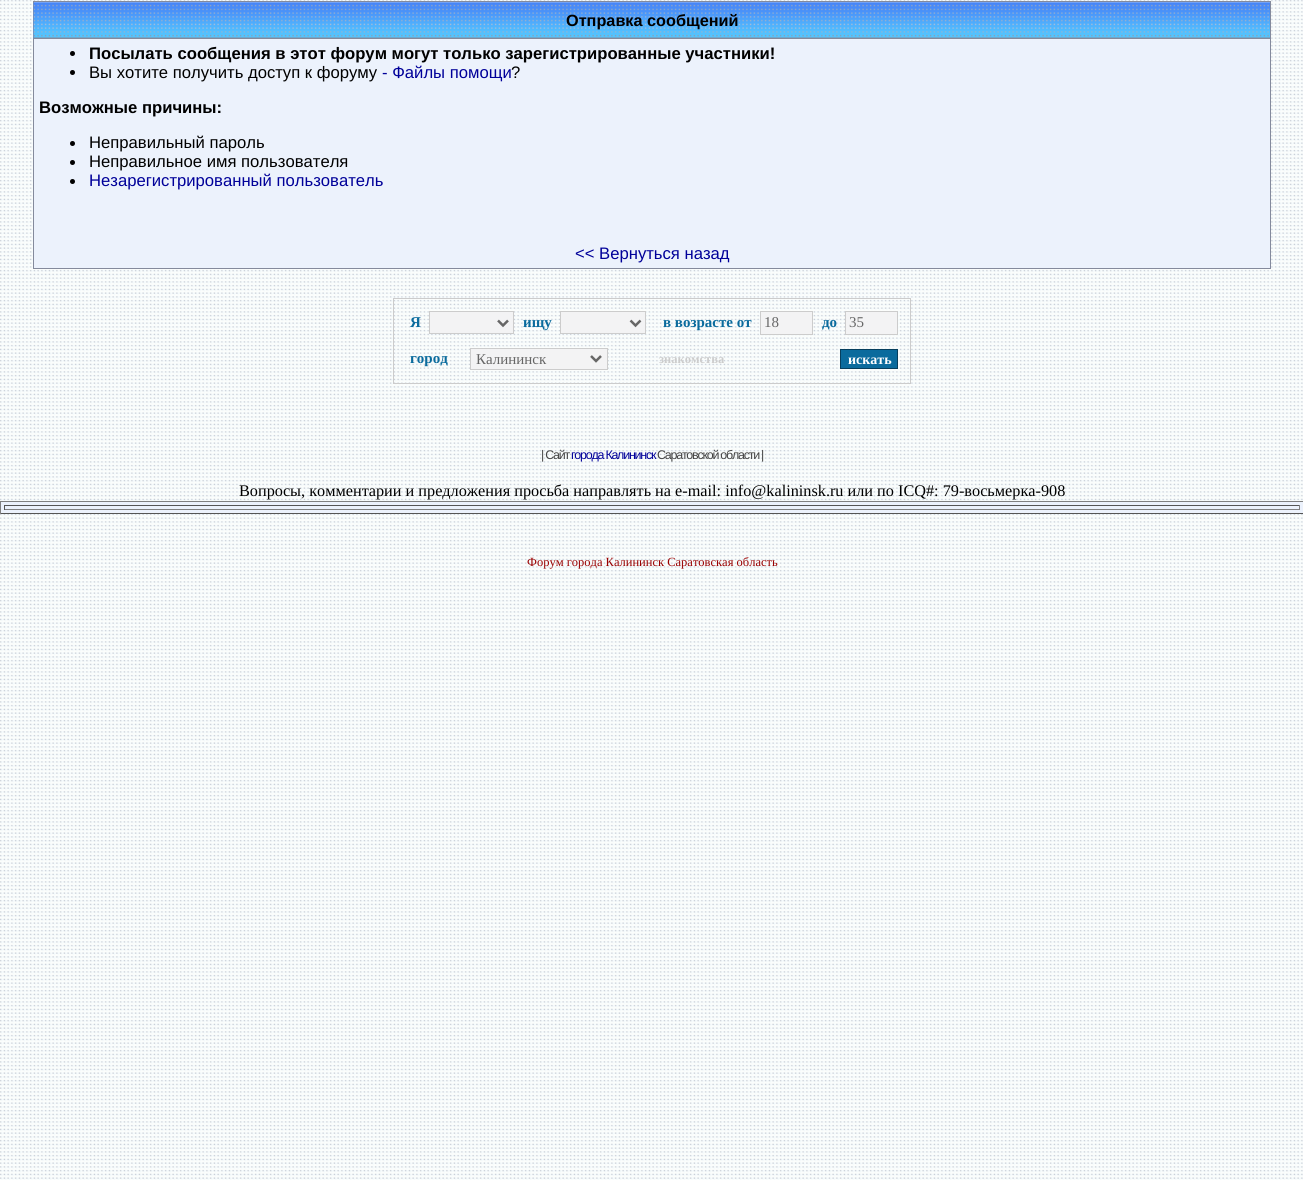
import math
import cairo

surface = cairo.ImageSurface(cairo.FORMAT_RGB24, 1303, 1181)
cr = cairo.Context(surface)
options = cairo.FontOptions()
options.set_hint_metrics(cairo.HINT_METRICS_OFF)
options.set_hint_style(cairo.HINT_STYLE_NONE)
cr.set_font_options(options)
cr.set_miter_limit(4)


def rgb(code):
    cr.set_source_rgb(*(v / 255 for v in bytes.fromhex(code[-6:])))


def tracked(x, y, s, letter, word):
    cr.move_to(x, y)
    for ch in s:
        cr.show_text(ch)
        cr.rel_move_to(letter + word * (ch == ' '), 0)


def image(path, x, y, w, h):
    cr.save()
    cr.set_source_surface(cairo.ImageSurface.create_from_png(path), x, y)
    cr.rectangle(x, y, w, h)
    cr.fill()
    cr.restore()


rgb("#ffffff")
cr.paint()
image("img/1.png", 0, 0, 1303, 1180)
rgb("#ecf2fc")
cr.rectangle(33.5, 1.5, 1237, 267)
cr.fill_preserve()
rgb("#848a9c")
cr.set_line_width(1)
cr.stroke()
image("img/2.png", 33, 2, 1237, 37)
cr.rectangle(34, 38, 1236, 1)
cr.fill()
rgb("#000000")
cr.arc(72.5, 53.5, 2.5, 0, 2 * math.pi)
cr.fill()
cr.arc(72.5, 72.5, 2.5, 0, 2 * math.pi)
cr.fill()
cr.arc(72.5, 143.5, 2.5, 0, 2 * math.pi)
cr.fill()
cr.arc(72.5, 162.5, 2.5, 0, 2 * math.pi)
cr.fill()
cr.arc(72.5, 181.5, 2.5, 0, 2 * math.pi)
cr.fill()
cr.rectangle(393.5, 298.5, 517, 85)
rgb("#cccccc")
cr.stroke()
rgb("#f3f3f4")
cr.rectangle(429.5, 311.5, 84, 22)
cr.fill_preserve()
rgb("#cccccc")
cr.stroke()
cr.new_path()
cr.move_to(498, 320.5)
cr.line_to(503, 325.5)
cr.line_to(508, 320.5)
rgb("#666666")
cr.set_line_width(2.5)
cr.stroke()
rgb("#f3f3f4")
cr.rectangle(560.5, 311.5, 85, 22)
cr.fill_preserve()
rgb("#cccccc")
cr.set_line_width(1)
cr.stroke()
cr.new_path()
cr.move_to(630.5, 320.5)
cr.line_to(635.5, 325.5)
cr.line_to(640.5, 320.5)
rgb("#666666")
cr.set_line_width(2.5)
cr.stroke()
rgb("#f3f3f4")
cr.rectangle(760.5, 311.5, 52, 23)
cr.fill_preserve()
rgb("#cccccc")
cr.set_line_width(1)
cr.stroke()
rgb("#f3f3f4")
cr.rectangle(845.5, 311.5, 52, 23)
cr.fill_preserve()
rgb("#cccccc")
cr.stroke()
rgb("#f3f3f4")
cr.rectangle(470.5, 348.5, 137, 21)
cr.fill_preserve()
rgb("#cccccc")
cr.stroke()
cr.new_path()
cr.move_to(591, 356)
cr.line_to(596, 361)
cr.line_to(601, 356)
rgb("#666666")
cr.set_line_width(2.5)
cr.stroke()
rgb("#0a6b9d")
cr.rectangle(840.5, 349.5, 57, 19)
cr.fill_preserve()
rgb("#063f5e")
cr.set_line_width(1)
cr.stroke()
for x, y, w, h, color in [
    (1, 502, 1302, 11, "#ecf2fc"),
    (0, 501, 1303, 1, "#808080"),
    (0, 513, 1303, 1, "#555555"),
    (0, 501, 1, 13, "#808080"),
    (4, 505, 1296, 1, "#555555"),
    (1299, 505, 1, 5, "#808080"),
    (4, 509, 1296, 1, "#808080"),
    (4, 505, 1, 5, "#555555"),
]:
    rgb(color)
    cr.rectangle(x, y, w, h)
    cr.fill()
cr.select_font_face("Liberation Sans", cairo.FONT_SLANT_NORMAL, cairo.FONT_WEIGHT_BOLD)
cr.set_font_size(16.25)
rgb("#000000")
cr.move_to(566, 26)
cr.show_text("Отправка сообщений")
cr.set_font_size(16.65)
cr.move_to(89, 59)
cr.show_text("Посылать сообщения в этот форум могут только зарегистрированные участники!")
cr.select_font_face("Liberation Sans")
cr.move_to(89, 78)
cr.show_text("Вы хотите получить доступ к форуму")
rgb("#000099")
cr.move_to(382, 78)
cr.show_text("- Файлы помощи")
rgb("#000000")
cr.move_to(511, 78)
cr.show_text("?")
cr.select_font_face("Liberation Sans", cairo.FONT_SLANT_NORMAL, cairo.FONT_WEIGHT_BOLD)
cr.move_to(39, 113)
cr.show_text("Возможные причины:")
cr.select_font_face("Liberation Sans")
cr.move_to(89, 148)
cr.show_text("Неправильный пароль")
cr.move_to(89, 167)
cr.show_text("Неправильное имя пользователя")
rgb("#000099")
cr.move_to(89, 186)
cr.show_text("Незарегистрированный пользователь")
cr.move_to(575, 259)
cr.show_text("<< Вернуться назад")
cr.select_font_face("Liberation Serif", cairo.FONT_SLANT_NORMAL, cairo.FONT_WEIGHT_BOLD)
cr.set_font_size(15)
rgb("#0a6b9d")
for x, y, s in [
    (410, 327, "Я"),
    (523, 327, "ищу"),
    (663, 327, "в возрасте от"),
]:
    cr.move_to(x, y)
    cr.show_text(s)
cr.select_font_face("Liberation Serif")
rgb("#666666")
cr.move_to(764, 327)
cr.show_text("18")
cr.select_font_face("Liberation Serif", cairo.FONT_SLANT_NORMAL, cairo.FONT_WEIGHT_BOLD)
rgb("#0a6b9d")
cr.move_to(822, 327)
cr.show_text("до")
cr.select_font_face("Liberation Serif")
rgb("#666666")
cr.move_to(849, 327)
cr.show_text("35")
cr.select_font_face("Liberation Serif", cairo.FONT_SLANT_NORMAL, cairo.FONT_WEIGHT_BOLD)
rgb("#0a6b9d")
cr.move_to(410, 363)
cr.show_text("город")
cr.select_font_face("Liberation Serif")
rgb("#666666")
cr.move_to(476, 364)
cr.show_text("Калининск")
cr.select_font_face("Liberation Serif", cairo.FONT_SLANT_NORMAL, cairo.FONT_WEIGHT_BOLD)
cr.set_font_size(12.5)
rgb("#cccccc")
cr.move_to(659, 363)
cr.show_text("знакомства")
cr.set_font_size(14)
rgb("#ffffff")
cr.move_to(848, 364)
cr.show_text("искать")
cr.select_font_face("Liberation Sans")
cr.set_font_size(12.5)
rgb("#444444")
tracked(541, 459, "| Сайт", -1.25, 0)
rgb("#000099")
tracked(571, 459, "города Калининск", -1.25, 0)
rgb("#444444")
tracked(657, 459, "Саратовской области |", -1.25, 0)
cr.select_font_face("Liberation Serif")
cr.set_font_size(16.25)
rgb("#000000")
cr.move_to(239, 496)
cr.show_text("Вопросы, комментарии и предложения просьба направлять на e-mail: info@kalininsk.ru или по ICQ#: 79-восьмерка-908")
cr.set_font_size(12.5)
rgb("#990000")
cr.move_to(527, 566)
cr.show_text("Форум города Калининск Саратовская область")
surface.write_to_png("page.png")
